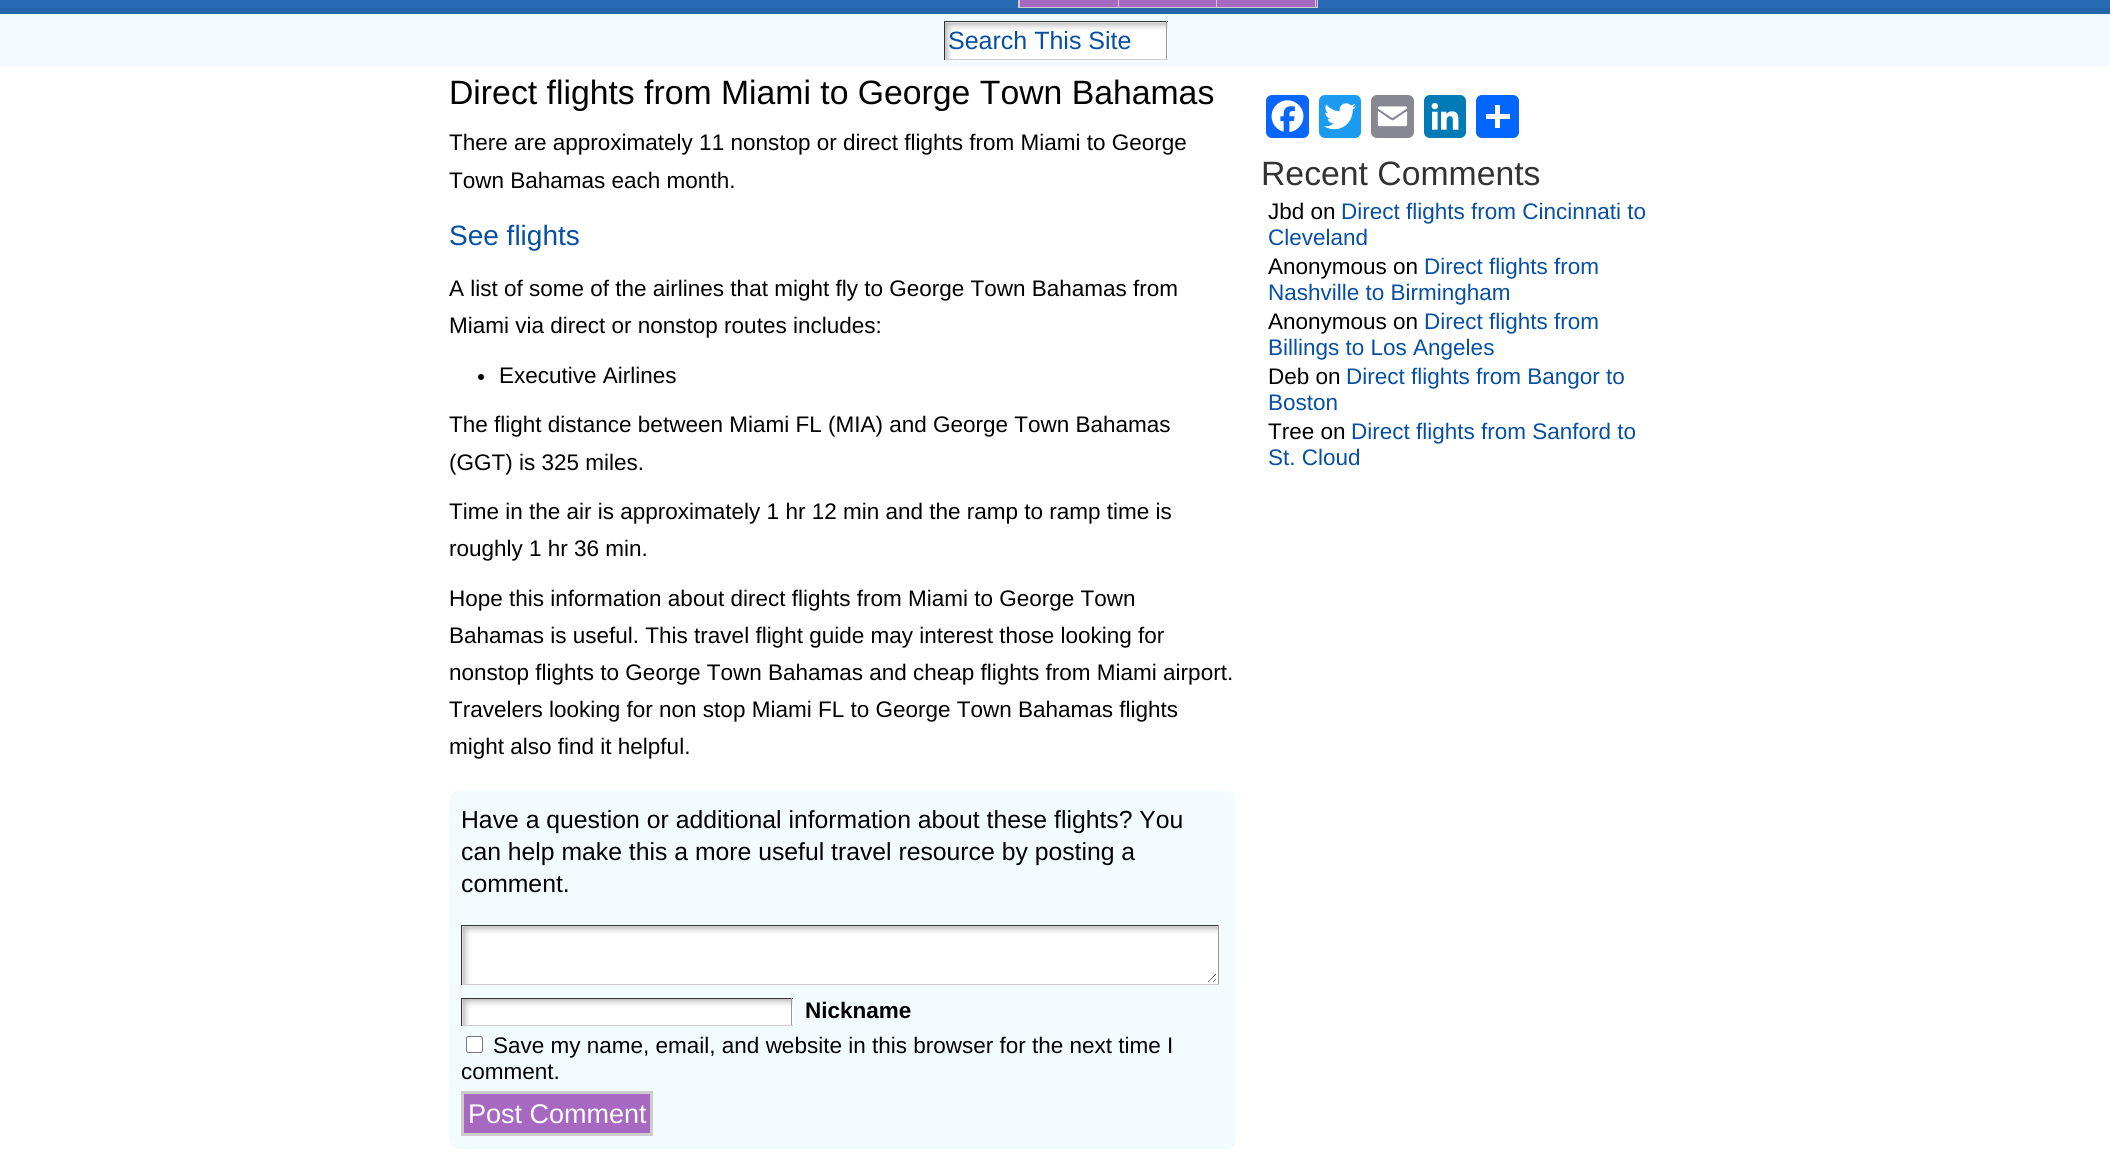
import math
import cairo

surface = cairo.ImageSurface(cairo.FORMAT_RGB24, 2110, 1168)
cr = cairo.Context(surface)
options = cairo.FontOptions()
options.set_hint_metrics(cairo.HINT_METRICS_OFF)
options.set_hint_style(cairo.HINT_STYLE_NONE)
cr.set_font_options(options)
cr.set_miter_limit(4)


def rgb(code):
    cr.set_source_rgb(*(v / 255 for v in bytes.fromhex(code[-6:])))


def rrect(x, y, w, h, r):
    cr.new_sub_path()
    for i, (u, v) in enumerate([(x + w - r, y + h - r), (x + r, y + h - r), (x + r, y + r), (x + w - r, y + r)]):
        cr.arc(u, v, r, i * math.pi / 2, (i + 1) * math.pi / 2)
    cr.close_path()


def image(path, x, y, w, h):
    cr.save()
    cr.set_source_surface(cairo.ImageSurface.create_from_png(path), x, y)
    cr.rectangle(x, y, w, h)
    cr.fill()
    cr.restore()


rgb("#ffffff")
cr.paint()
rgb("#286bb5")
cr.rectangle(0, 0, 2110, 8)
cr.fill()
rgb("#a668c1")
cr.rectangle(1316, 0, 2, 7)
cr.fill()
cr.rectangle(1018.5, -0.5, 299, 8)
rgb("#cccccc")
cr.set_line_width(1)
cr.stroke()
rgb("#a668c1")
cr.rectangle(1019.5, -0.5, 99, 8)
cr.fill_preserve()
rgb("#cccccc")
cr.stroke()
rgb("#a668c1")
cr.rectangle(1118.5, -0.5, 99, 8)
cr.fill_preserve()
rgb("#cccccc")
cr.stroke()
rgb("#a668c1")
cr.rectangle(1216.5, -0.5, 99, 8)
cr.fill_preserve()
rgb("#cccccc")
cr.stroke()
rgb("#2564a7")
cr.rectangle(0, 8, 2110, 6)
cr.fill()
rgb("#f2fbff")
cr.rectangle(0, 14, 2110, 52)
cr.fill()
image("img/1.png", 945, 22, 223, 37)
for x, y, w, h, color in [
    (944, 21, 224, 1, "#333333"),
    (1166, 21, 1, 39, "#999999"),
    (944, 59, 224, 1, "#cccccc"),
    (944, 21, 1, 39, "#333333"),
]:
    rgb(color)
    cr.rectangle(x, y, w, h)
    cr.fill()
rgb("#000000")
cr.arc(481, 377, 3, 0, 2 * math.pi)
cr.fill()
rgb("#f2fbff")
rrect(449, 791, 787, 358, 10)
cr.fill()
image("img/2.png", 462, 926, 756, 58)
for x, y, w, h, color in [
    (461, 925, 758, 1, "#333333"),
    (1218, 925, 1, 60, "#999999"),
    (461, 984, 758, 1, "#cccccc"),
    (461, 925, 1, 60, "#333333"),
]:
    rgb(color)
    cr.rectangle(x, y, w, h)
    cr.fill()
image("img/3.png", 462, 999, 331, 28)
for x, y, w, h, color in [
    (461, 998, 332, 1, "#333333"),
    (791, 998, 1, 28, "#999999"),
    (461, 1025, 332, 1, "#cccccc"),
    (461, 998, 1, 28, "#333333"),
]:
    rgb(color)
    cr.rectangle(x, y, w, h)
    cr.fill()
rgb("#ffffff")
rrect(466.5, 1036.5, 16, 16, 2)
cr.fill_preserve()
rgb("#767676")
cr.stroke()
rgb("#a668c1")
cr.rectangle(462.5, 1092.5, 189, 42)
cr.fill_preserve()
rgb("#cccccc")
cr.set_line_width(3)
cr.stroke()
rgb("#0866ff")
rrect(1266, 95, 43, 43, 6)
cr.fill()
image("img/4.png", 1271, 100, 33, 32)
rgb("#1d9bf0")
rrect(1319, 95, 42, 43, 6)
cr.fill()
image("img/5.png", 1324, 103, 32, 27)
rgb("#888990")
rrect(1371, 95, 43, 43, 6)
cr.fill()
image("img/6.png", 1377, 106, 31, 21)
rgb("#007bb5")
rrect(1424, 95, 42, 43, 6)
cr.fill()
image("img/7.png", 1431, 102, 28, 28)
rgb("#0166ff")
rrect(1476, 95, 43, 43, 6)
cr.fill()
rgb("#ffffff")
cr.rectangle(1495, 105, 5, 23)
cr.fill()
cr.rectangle(1486, 114, 24, 5)
cr.fill()
cr.select_font_face("Liberation Sans")
cr.set_font_size(25)
rgb("#064fa2")
cr.move_to(948, 49)
cr.show_text("Search This Site")
cr.set_font_size(33.75)
rgb("#000000")
cr.move_to(449, 104)
cr.show_text("Direct flights from Miami to George Town Bahamas")
cr.set_font_size(22.5)
cr.move_to(449, 150)
cr.show_text("There are approximately 11 nonstop or direct flights from Miami to George")
cr.move_to(449, 188)
cr.show_text("Town Bahamas each month.")
cr.set_font_size(28)
rgb("#064fa2")
cr.move_to(449, 245)
cr.show_text("See flights")
cr.set_font_size(22.5)
rgb("#000000")
for x, y, s in [
    (449, 296, "A list of some of the airlines that might fly to George Town Bahamas from"),
    (449, 333, "Miami via direct or nonstop routes includes:"),
    (499, 383, "Executive Airlines"),
    (449, 432, "The flight distance between Miami FL (MIA) and George Town Bahamas"),
    (449, 470, "(GGT) is 325 miles."),
    (449, 519, "Time in the air is approximately 1 hr 12 min and the ramp to ramp time is"),
    (449, 556, "roughly 1 hr 36 min."),
    (449, 606, "Hope this information about direct flights from Miami to George Town"),
    (449, 643, "Bahamas is useful. This travel flight guide may interest those looking for"),
    (449, 680, "nonstop flights to George Town Bahamas and cheap flights from Miami airport."),
    (449, 717, "Travelers looking for non stop Miami FL to George Town Bahamas flights"),
    (449, 754, "might also find it helpful."),
]:
    cr.move_to(x, y)
    cr.show_text(s)
cr.set_font_size(24.75)
for x, y, s in [
    (461, 828, "Have a question or additional information about these flights? You"),
    (461, 860, "can help make this a more useful travel resource by posting a"),
    (461, 892, "comment."),
]:
    cr.move_to(x, y)
    cr.show_text(s)
cr.select_font_face("Liberation Sans", cairo.FONT_SLANT_NORMAL, cairo.FONT_WEIGHT_BOLD)
cr.set_font_size(22.5)
cr.move_to(805, 1018)
cr.show_text("Nickname")
cr.select_font_face("Liberation Sans")
cr.move_to(493, 1053)
cr.show_text("Save my name, email, and website in this browser for the next time I")
cr.move_to(461, 1079)
cr.show_text("comment.")
cr.set_font_size(27)
rgb("#ffffff")
cr.move_to(468, 1123)
cr.show_text("Post Comment")
cr.set_font_size(33.75)
rgb("#333333")
cr.move_to(1261, 185)
cr.show_text("Recent Comments")
cr.set_font_size(22.5)
rgb("#000000")
cr.move_to(1268, 219)
cr.show_text("Jbd on")
rgb("#064fa2")
cr.move_to(1341, 219)
cr.show_text("Direct flights from Cincinnati to")
cr.move_to(1268, 245)
cr.show_text("Cleveland")
rgb("#000000")
cr.move_to(1268, 274)
cr.show_text("Anonymous on")
rgb("#064fa2")
cr.move_to(1424, 274)
cr.show_text("Direct flights from")
cr.move_to(1268, 300)
cr.show_text("Nashville to Birmingham")
rgb("#000000")
cr.move_to(1268, 329)
cr.show_text("Anonymous on")
rgb("#064fa2")
cr.move_to(1424, 329)
cr.show_text("Direct flights from")
cr.move_to(1268, 355)
cr.show_text("Billings to Los Angeles")
rgb("#000000")
cr.move_to(1268, 384)
cr.show_text("Deb on")
rgb("#064fa2")
cr.move_to(1346, 384)
cr.show_text("Direct flights from Bangor to")
cr.move_to(1268, 410)
cr.show_text("Boston")
rgb("#000000")
cr.move_to(1268, 439)
cr.show_text("Tree on")
rgb("#064fa2")
cr.move_to(1351, 439)
cr.show_text("Direct flights from Sanford to")
cr.move_to(1268, 465)
cr.show_text("St. Cloud")
surface.write_to_png("page.png")
